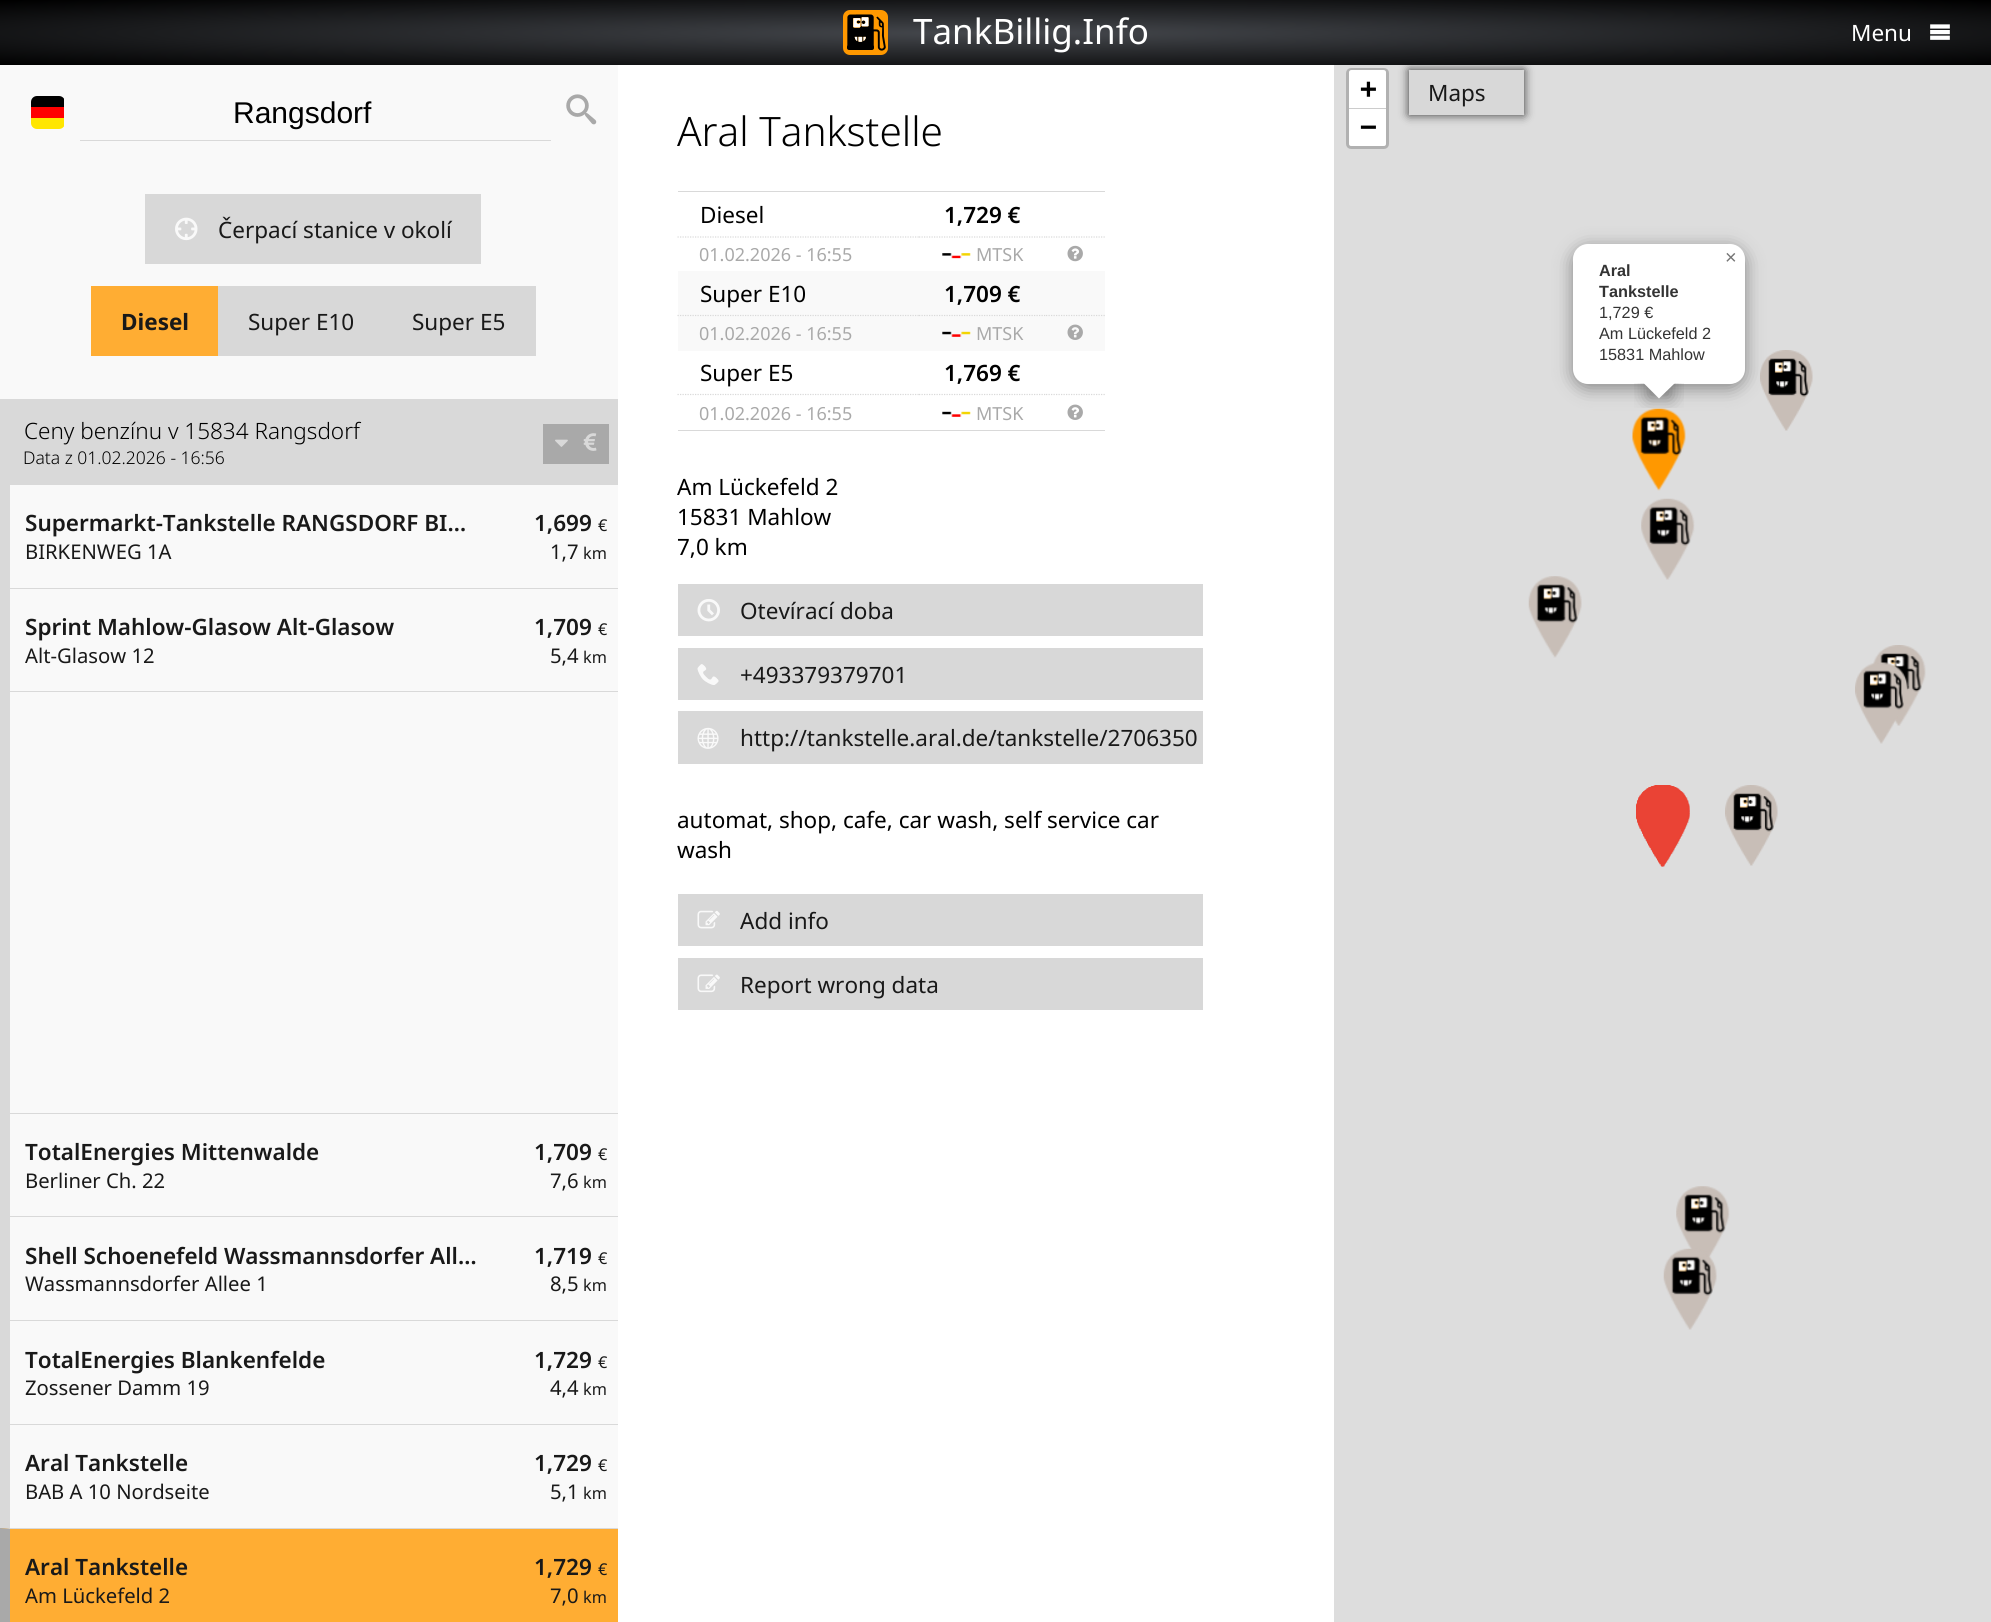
import math
import cairo

surface = cairo.ImageSurface(cairo.FORMAT_RGB24, 1991, 1622)
cr = cairo.Context(surface)
options = cairo.FontOptions()
options.set_hint_metrics(cairo.HINT_METRICS_OFF)
options.set_hint_style(cairo.HINT_STYLE_NONE)
cr.set_font_options(options)
cr.set_miter_limit(4)


def rgb(code):
    cr.set_source_rgb(*(v / 255 for v in bytes.fromhex(code[-6:])))


def rrect(x, y, w, h, r):
    cr.new_sub_path()
    for i, (u, v) in enumerate([(x + w - r, y + h - r), (x + r, y + h - r), (x + r, y + r), (x + w - r, y + r)]):
        cr.arc(u, v, r, i * math.pi / 2, (i + 1) * math.pi / 2)
    cr.close_path()


def soft_shadow(x, y, w, h, r, blur, alpha):
    cr.push_group_with_content(cairo.CONTENT_ALPHA)
    cr.set_operator(cairo.OPERATOR_SOURCE)
    for i in range(15, -16, -2):
        e = blur * i / 6
        if min(w, h) + 2 * e > 0:
            cr.set_source_rgba(0, 0, 0, alpha * math.erfc((i - 1) / 8.5) / 2)
            rrect(x - e, y - e, w + 2 * e, h + 2 * e, max(0, min(r + e + blur * .6, min(w, h) / 2 + e)))
            cr.fill()
    cr.mask(cr.pop_group())


def image(path, x, y, w, h):
    cr.save()
    cr.set_source_surface(cairo.ImageSurface.create_from_png(path), x, y)
    cr.rectangle(x, y, w, h)
    cr.fill()
    cr.restore()


rgb("#ffffff")
cr.paint()
rgb("#dddddd")
cr.rectangle(1334, 65, 657, 1557)
cr.fill()
rgb("#000000")
soft_shadow(1409, 70, 115, 45, 0, 5, 0.75)
gradient = cairo.RadialGradient(0, 0, 0, 0, 0, 1)
gradient.set_matrix(cairo.Matrix(1 / 1408, 0, 0, 1 / 46, -1 * 996 / 1408, -1 * 33 / 46))
gradient.add_color_stop_rgba(0, 0.271, 0.282, 0.302, 1)
gradient.add_color_stop_rgba(1, 0, 0, 0, 1)
cr.set_source(gradient)
cr.rectangle(0, 0, 1991, 65)
cr.fill()
image("img/1.png", 843, 10, 45, 45)
image("img/2.png", 1930, 24, 20, 16)
rgb("#f9f9f9")
cr.rectangle(0, 65, 618, 1463)
cr.fill()
cr.save()
rrect(31, 96, 34, 33, 6)
cr.clip()
rgb("#ffe600")
cr.new_path()
cr.move_to(31, 118)
cr.line_to(64, 118)
cr.line_to(64, 129)
cr.line_to(37, 129)
cr.curve_to(33.5, 129, 31, 126.5, 31, 123)
cr.close_path()
cr.fill()
rgb("#000000")
cr.new_path()
cr.move_to(37, 96)
cr.line_to(64, 96)
cr.line_to(64, 107)
cr.line_to(31, 107)
cr.line_to(31, 102)
cr.curve_to(31, 98.5, 33.5, 96, 37, 96)
cr.close_path()
cr.fill()
cr.restore()
rgb("#ff0000")
cr.rectangle(31, 107, 33, 11)
cr.fill()
rgb("#d9d9d9")
cr.rectangle(80, 140, 471, 1)
cr.fill()
image("img/3.png", 566, 94, 31, 31)
rgb("#d8d8d8")
cr.rectangle(145, 194, 336, 70)
cr.fill()
image("img/4.png", 175, 217, 23, 24)
for x, y, w, h, color in [
    (91, 286, 127, 70, "#ffad33"),
    (218, 286, 318, 70, "#d8d8d8"),
    (0, 399, 618, 85, "#d9d9d9"),
    (543, 424, 66, 40, "#a9a9a9"),
]:
    rgb(color)
    cr.rectangle(x, y, w, h)
    cr.fill()
image("img/5.png", 555, 439, 13, 8)
image("img/6.png", 583, 433, 14, 18)
for x, y, w, h, color in [
    (10, 484, 608, 1, "#d9d9d9"),
    (0, 484, 10, 1044, "#d9d9d9"),
    (10, 588, 608, 1, "#d9d9d9"),
    (10, 691, 608, 1, "#d9d9d9"),
    (10, 1113, 608, 1, "#d9d9d9"),
    (10, 1216, 608, 1, "#d9d9d9"),
    (10, 1320, 608, 1, "#d9d9d9"),
    (10, 1424, 608, 1, "#d9d9d9"),
    (0, 1528, 618, 94, "#ffad33"),
]:
    rgb(color)
    cr.rectangle(x, y, w, h)
    cr.fill()
cr.save()
cr.rectangle(0, 55, 618, 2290)
cr.clip()
rgb("#d9d9d9")
cr.new_path()
cr.move_to(0, 1528)
cr.line_to(642, 1528)
cr.line_to(642, 1529)
cr.line_to(10, 1529)
cr.close_path()
cr.fill()
cr.restore()
rgb("#a9a9a9")
cr.new_path()
cr.move_to(0, 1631)
cr.line_to(0, 1528)
cr.line_to(10, 1529)
cr.line_to(10, 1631)
cr.close_path()
cr.fill()
rgb("#d9d9d9")
cr.rectangle(678, 191, 427, 1)
cr.fill()
cr.rectangle(678, 430, 427, 1)
cr.fill()
cr.new_path()
cr.move_to(677.5, 237)
cr.line_to(919, 237)
cr.set_line_width(1.2)
cr.set_dash([1.25, 1.25])
cr.stroke()
cr.new_path()
cr.move_to(919, 237)
cr.line_to(1046, 237)
cr.stroke()
image("img/7.png", 942, 253, 29, 6)
cr.new_path()
cr.move_to(1046, 237)
cr.line_to(1105, 237)
cr.stroke()
image("img/8.png", 1067, 245, 16, 17)
rgb("#f9f9f9")
cr.rectangle(678, 271, 427, 80)
cr.fill()
cr.new_path()
cr.move_to(677.5, 315.5)
cr.line_to(919, 315.5)
rgb("#d9d9d9")
cr.stroke()
cr.new_path()
cr.move_to(919, 315.5)
cr.line_to(1046, 315.5)
cr.stroke()
image("img/9.png", 942, 331, 29, 6)
cr.new_path()
cr.move_to(1046, 315.5)
cr.line_to(1105, 315.5)
cr.stroke()
image("img/10.png", 1067, 324, 16, 16)
cr.new_path()
cr.move_to(677.5, 394.5)
cr.line_to(919, 394.5)
cr.stroke()
cr.new_path()
cr.move_to(919, 394.5)
cr.line_to(1046, 394.5)
cr.stroke()
image("img/11.png", 942, 411, 29, 6)
cr.new_path()
cr.move_to(1046, 394.5)
cr.line_to(1105, 394.5)
cr.stroke()
image("img/12.png", 1067, 404, 16, 16)
rgb("#d8d8d8")
cr.rectangle(678, 584, 525, 52)
cr.fill()
image("img/13.png", 697, 599, 23, 23)
cr.rectangle(678, 648, 525, 52)
cr.fill()
image("img/14.png", 697, 664, 22, 21)
cr.rectangle(678, 711, 525, 53)
cr.fill()
image("img/15.png", 697, 727, 22, 22)
cr.rectangle(678, 894, 525, 52)
cr.fill()
image("img/16.png", 697, 910, 23, 19)
cr.rectangle(678, 958, 525, 52)
cr.fill()
image("img/17.png", 697, 974, 23, 19)
rrect(1347.5, 69.5, 40, 78, 3.5)
rgb("#b1b1b1")
cr.set_line_width(3)
cr.set_dash([])
cr.stroke()
rgb("#ffffff")
cr.new_path()
cr.move_to(1351.5, 70)
cr.line_to(1383.5, 70)
cr.curve_to(1385, 70, 1386, 71, 1386, 72.5)
cr.line_to(1386, 109)
cr.line_to(1349, 109)
cr.line_to(1349, 72.5)
cr.curve_to(1349, 71, 1350, 70, 1351.5, 70)
cr.close_path()
cr.fill()
rgb("#cccccc")
cr.rectangle(1349, 108, 37, 1)
cr.fill()
rgb("#ffffff")
cr.new_path()
cr.move_to(1349, 109)
cr.line_to(1386, 109)
cr.line_to(1386, 143.5)
cr.curve_to(1386, 145, 1385, 146, 1383.5, 146)
cr.line_to(1351.5, 146)
cr.curve_to(1350, 146, 1349, 145, 1349, 143.5)
cr.close_path()
cr.fill()
image("img/18.png", 1760, 350, 53, 81)
image("img/19.png", 1632, 408, 54, 83)
rgb("#000000")
soft_shadow(1573, 248, 172, 140, 15, 9, 0.4)
rgb("#ffffff")
rrect(1573, 244, 172, 140, 15)
cr.fill()
cr.save()
cr.rectangle(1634, 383, 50, 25)
cr.clip()
rgb("#000000")
soft_shadow(1648, 374, 23, 24, 0, 9, 0.4)
cr.restore()
cr.save()
cr.rectangle(1634, 383, 50, 25)
cr.clip()
cr.new_path()
cr.move_to(1659, 365)
cr.line_to(1676, 382)
cr.line_to(1659, 398.5)
cr.line_to(1642.5, 382)
cr.close_path()
cr.fill()
cr.restore()
image("img/20.png", 1641, 498, 54, 82)
image("img/21.png", 1528, 576, 54, 82)
image("img/22.png", 1872, 645, 54, 81)
image("img/23.png", 1855, 662, 53, 82)
image("img/24.png", 1636, 785, 54, 82)
image("img/25.png", 1636, 785, 54, 82)
image("img/26.png", 1636, 785, 54, 82)
image("img/27.png", 1636, 785, 54, 82)
image("img/28.png", 1636, 785, 54, 82)
image("img/29.png", 1636, 785, 54, 82)
image("img/30.png", 1636, 785, 54, 82)
image("img/31.png", 1636, 785, 54, 82)
image("img/32.png", 1636, 785, 54, 82)
image("img/33.png", 1636, 785, 54, 82)
image("img/34.png", 1636, 785, 54, 82)
image("img/18.png", 1725, 785, 53, 81)
image("img/35.png", 1676, 1186, 54, 73)
image("img/36.png", 1663, 1248, 54, 82)
rgb("#d8d8d8")
cr.rectangle(1409, 70, 115, 45)
cr.fill()
cr.select_font_face("Noto Sans")
cr.set_font_size(35)
rgb("#ffffff")
cr.move_to(913, 44)
cr.show_text("TankBillig.Info")
cr.set_font_size(22.5)
cr.move_to(1851, 41)
cr.show_text("Menu")
cr.select_font_face("Liberation Sans")
cr.set_font_size(30)
rgb("#000000")
cr.move_to(233, 123)
cr.show_text("Rangsdorf")
cr.select_font_face("Noto Sans")
cr.set_font_size(22.5)
rgb("#191919")
cr.move_to(218, 238)
cr.show_text("Čerpací stanice v okolí")
cr.select_font_face("Noto Sans", cairo.FONT_SLANT_NORMAL, cairo.FONT_WEIGHT_BOLD)
cr.move_to(121, 330)
cr.show_text("Diesel")
cr.select_font_face("Noto Sans")
cr.move_to(248, 330)
cr.show_text("Super E10")
cr.move_to(412, 330)
cr.show_text("Super E5")
cr.select_font_face("Noto Sans Light")
rgb("#000000")
cr.move_to(24, 439)
cr.show_text("Ceny benzínu v 15834 Rangsdorf")
cr.set_font_size(17.5)
cr.move_to(23, 464)
cr.show_text("Data z 01.02.2026 - 16:56")
cr.select_font_face("Noto Sans SemiBold")
cr.set_font_size(22.5)
rgb("#191919")
cr.move_to(25, 531)
cr.show_text("Supermarkt-Tankstelle RANGSDORF BI…")
cr.select_font_face("Noto Sans")
cr.set_font_size(20.25)
cr.move_to(25, 559)
cr.show_text("BIRKENWEG 1A")
cr.select_font_face("Noto Sans SemiBold")
cr.set_font_size(22.5)
cr.move_to(534, 531)
cr.show_text("1,699")
cr.select_font_face("Noto Sans")
cr.set_font_size(16.25)
cr.move_to(598, 531)
cr.show_text("€")
cr.set_font_size(20.25)
cr.move_to(550, 559)
cr.show_text("1,7")
cr.set_font_size(16.25)
cr.move_to(583, 559)
cr.show_text("km")
cr.select_font_face("Noto Sans SemiBold")
cr.set_font_size(22.5)
cr.move_to(25, 635)
cr.show_text("Sprint Mahlow-Glasow Alt-Glasow")
cr.select_font_face("Noto Sans")
cr.set_font_size(20.25)
cr.move_to(25, 663)
cr.show_text("Alt-Glasow 12")
cr.select_font_face("Noto Sans SemiBold")
cr.set_font_size(22.5)
cr.move_to(534, 635)
cr.show_text("1,709")
cr.select_font_face("Noto Sans")
cr.set_font_size(16.25)
cr.move_to(598, 635)
cr.show_text("€")
cr.set_font_size(20.25)
cr.move_to(550, 663)
cr.show_text("5,4")
cr.set_font_size(16.25)
cr.move_to(583, 663)
cr.show_text("km")
cr.select_font_face("Noto Sans SemiBold")
cr.set_font_size(22.5)
cr.move_to(25, 1160)
cr.show_text("TotalEnergies Mittenwalde")
cr.select_font_face("Noto Sans")
cr.set_font_size(20.25)
cr.move_to(25, 1188)
cr.show_text("Berliner Ch. 22")
cr.select_font_face("Noto Sans SemiBold")
cr.set_font_size(22.5)
cr.move_to(534, 1160)
cr.show_text("1,709")
cr.select_font_face("Noto Sans")
cr.set_font_size(16.25)
cr.move_to(598, 1160)
cr.show_text("€")
cr.set_font_size(20.25)
cr.move_to(550, 1188)
cr.show_text("7,6")
cr.set_font_size(16.25)
cr.move_to(583, 1188)
cr.show_text("km")
cr.select_font_face("Noto Sans SemiBold")
cr.set_font_size(22.5)
cr.move_to(25, 1264)
cr.show_text("Shell Schoenefeld Wassmannsdorfer All…")
cr.select_font_face("Noto Sans")
cr.set_font_size(20.25)
cr.move_to(25, 1291)
cr.show_text("Wassmannsdorfer Allee 1")
cr.select_font_face("Noto Sans SemiBold")
cr.set_font_size(22.5)
cr.move_to(534, 1264)
cr.show_text("1,719")
cr.select_font_face("Noto Sans")
cr.set_font_size(16.25)
cr.move_to(598, 1264)
cr.show_text("€")
cr.set_font_size(20.25)
cr.move_to(550, 1291)
cr.show_text("8,5")
cr.set_font_size(16.25)
cr.move_to(583, 1291)
cr.show_text("km")
cr.select_font_face("Noto Sans SemiBold")
cr.set_font_size(22.5)
cr.move_to(25, 1368)
cr.show_text("TotalEnergies Blankenfelde")
cr.select_font_face("Noto Sans")
cr.set_font_size(20.25)
cr.move_to(25, 1395)
cr.show_text("Zossener Damm 19")
cr.select_font_face("Noto Sans SemiBold")
cr.set_font_size(22.5)
cr.move_to(534, 1368)
cr.show_text("1,729")
cr.select_font_face("Noto Sans")
cr.set_font_size(16.25)
cr.move_to(598, 1368)
cr.show_text("€")
cr.set_font_size(20.25)
cr.move_to(550, 1395)
cr.show_text("4,4")
cr.set_font_size(16.25)
cr.move_to(583, 1395)
cr.show_text("km")
cr.select_font_face("Noto Sans SemiBold")
cr.set_font_size(22.5)
cr.move_to(25, 1471)
cr.show_text("Aral Tankstelle")
cr.select_font_face("Noto Sans")
cr.set_font_size(20.25)
cr.move_to(25, 1499)
cr.show_text("BAB A 10 Nordseite")
cr.select_font_face("Noto Sans SemiBold")
cr.set_font_size(22.5)
cr.move_to(534, 1471)
cr.show_text("1,729")
cr.select_font_face("Noto Sans")
cr.set_font_size(16.25)
cr.move_to(598, 1471)
cr.show_text("€")
cr.set_font_size(20.25)
cr.move_to(550, 1499)
cr.show_text("5,1")
cr.set_font_size(16.25)
cr.move_to(583, 1499)
cr.show_text("km")
cr.select_font_face("Noto Sans SemiBold")
cr.set_font_size(22.5)
cr.move_to(25, 1575)
cr.show_text("Aral Tankstelle")
cr.select_font_face("Noto Sans")
cr.set_font_size(20.25)
cr.move_to(25, 1603)
cr.show_text("Am Lückefeld 2")
cr.select_font_face("Noto Sans SemiBold")
cr.set_font_size(22.5)
cr.move_to(534, 1575)
cr.show_text("1,729")
cr.select_font_face("Noto Sans")
cr.set_font_size(16.25)
cr.move_to(598, 1575)
cr.show_text("€")
cr.set_font_size(20.25)
cr.move_to(550, 1603)
cr.show_text("7,0")
cr.set_font_size(16.25)
cr.move_to(583, 1603)
cr.show_text("km")
cr.select_font_face("Noto Sans Light")
cr.set_font_size(40.5)
rgb("#000000")
cr.move_to(677, 146)
cr.show_text("Aral Tankstelle")
cr.select_font_face("Noto Sans")
cr.set_font_size(22.5)
cr.move_to(700, 223)
cr.show_text("Diesel")
cr.select_font_face("Noto Sans SemiBold")
cr.move_to(944, 223)
cr.show_text("1,729 €")
cr.select_font_face("Noto Sans")
cr.set_font_size(18)
rgb("#a9a9a9")
cr.move_to(699, 261)
cr.show_text("01.02.2026 - 16:55")
cr.move_to(976, 261)
cr.show_text("MTSK")
cr.set_font_size(22.5)
rgb("#000000")
cr.move_to(700, 302)
cr.show_text("Super E10")
cr.select_font_face("Noto Sans SemiBold")
cr.move_to(944, 302)
cr.show_text("1,709 €")
cr.select_font_face("Noto Sans")
cr.set_font_size(18)
rgb("#a9a9a9")
cr.move_to(699, 340)
cr.show_text("01.02.2026 - 16:55")
cr.move_to(976, 340)
cr.show_text("MTSK")
cr.set_font_size(22.5)
rgb("#000000")
cr.move_to(700, 381)
cr.show_text("Super E5")
cr.select_font_face("Noto Sans SemiBold")
cr.move_to(944, 381)
cr.show_text("1,769 €")
cr.select_font_face("Noto Sans")
cr.set_font_size(18)
rgb("#a9a9a9")
cr.move_to(699, 420)
cr.show_text("01.02.2026 - 16:55")
cr.move_to(976, 420)
cr.show_text("MTSK")
cr.set_font_size(22.5)
rgb("#000000")
for x, y, s in [
    (677, 495, "Am Lückefeld 2"),
    (677, 525, "15831 Mahlow"),
    (677, 555, "7,0 km"),
]:
    cr.move_to(x, y)
    cr.show_text(s)
rgb("#191919")
for x, y, s in [
    (740, 619, "Otevírací doba"),
    (740, 683, "+493379379701"),
    (740, 746, "http://tankstelle.aral.de/tankstelle/2706350"),
]:
    cr.move_to(x, y)
    cr.show_text(s)
rgb("#000000")
cr.move_to(677, 828)
cr.show_text("automat, shop, cafe, car wash, self service car")
cr.move_to(677, 858)
cr.show_text("wash")
rgb("#191919")
cr.move_to(740, 929)
cr.show_text("Add info")
cr.move_to(740, 993)
cr.show_text("Report wrong data")
cr.select_font_face("DejaVu Sans Mono", cairo.FONT_SLANT_NORMAL, cairo.FONT_WEIGHT_BOLD)
cr.set_font_size(28)
rgb("#000000")
cr.move_to(1360, 98)
cr.show_text("+")
cr.move_to(1360, 136)
cr.show_text("−")
cr.select_font_face("Liberation Sans")
cr.set_font_size(20)
rgb("#757575")
cr.move_to(1725, 264)
cr.show_text("×")
cr.select_font_face("Liberation Sans", cairo.FONT_SLANT_NORMAL, cairo.FONT_WEIGHT_BOLD)
cr.set_font_size(16.25)
rgb("#333333")
cr.move_to(1599, 276)
cr.show_text("Aral")
cr.move_to(1599, 297)
cr.show_text("Tankstelle")
cr.select_font_face("Liberation Sans")
for x, y, s in [
    (1599, 318, "1,729 €"),
    (1599, 339, "Am Lückefeld 2"),
    (1599, 360, "15831 Mahlow"),
]:
    cr.move_to(x, y)
    cr.show_text(s)
cr.select_font_face("Noto Sans")
cr.set_font_size(22.5)
rgb("#191919")
cr.move_to(1428, 101)
cr.show_text("Maps")
surface.write_to_png("page.png")
